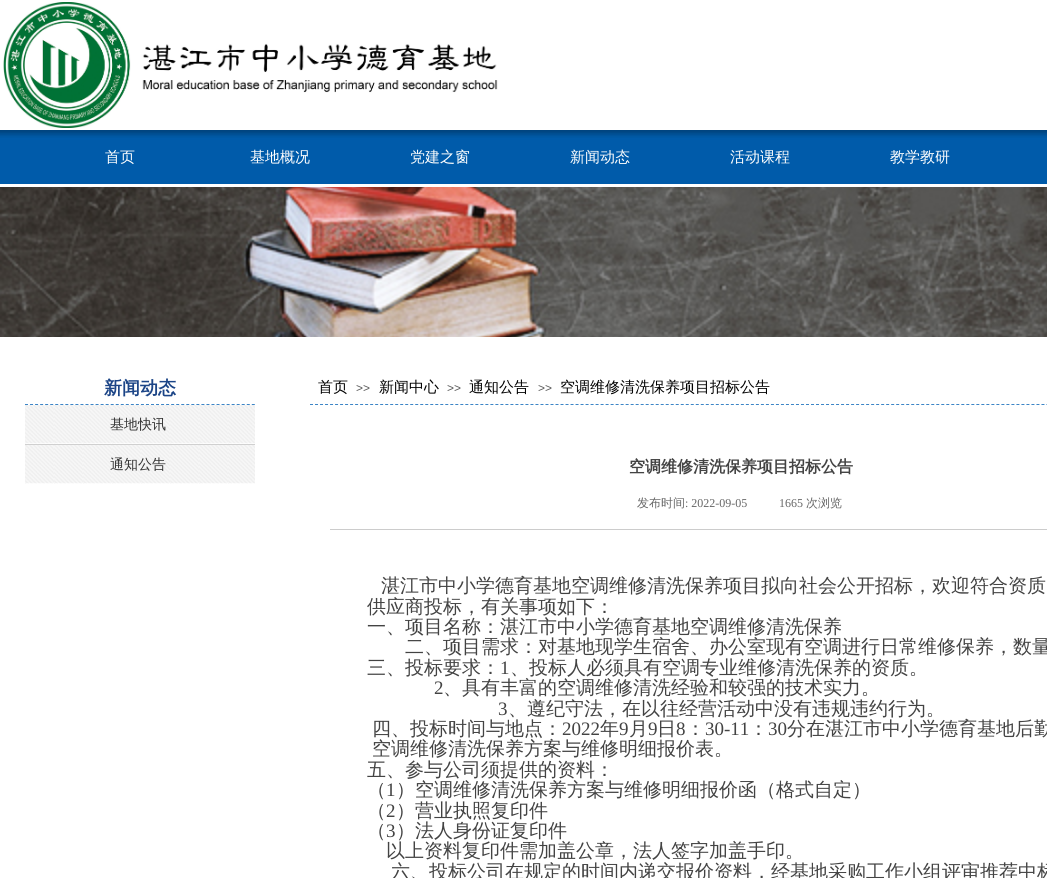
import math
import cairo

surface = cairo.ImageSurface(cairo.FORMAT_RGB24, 1047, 878)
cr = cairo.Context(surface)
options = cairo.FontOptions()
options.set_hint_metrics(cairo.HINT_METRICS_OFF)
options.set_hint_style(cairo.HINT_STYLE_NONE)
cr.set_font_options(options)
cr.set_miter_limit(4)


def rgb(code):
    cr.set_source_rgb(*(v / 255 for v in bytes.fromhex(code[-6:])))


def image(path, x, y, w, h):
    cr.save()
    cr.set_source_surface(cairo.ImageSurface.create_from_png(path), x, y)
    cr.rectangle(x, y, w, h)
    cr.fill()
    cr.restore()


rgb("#ffffff")
cr.paint()
image("img/1.png", 3, 2, 495, 126)
image("img/2.png", 0, 130, 1047, 54)
image("img/3.png", 0, 187, 1047, 150)
cr.new_path()
cr.move_to(25, 404.5)
cr.line_to(255, 404.5)
rgb("#3d85c6")
cr.set_line_width(1)
cr.set_dash([3, 2.04])
cr.stroke()
cr.new_path()
cr.move_to(310, 404.5)
cr.line_to(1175, 404.5)
cr.set_dash([3, 2.01])
cr.stroke()
image("img/4.png", 25, 405, 230, 39)
rgb("#d0d0d0")
cr.rectangle(25, 444, 230, 1)
cr.fill()
image("img/4.png", 25, 445, 230, 39)
rgb("#cccccc")
cr.rectangle(330, 529, 717, 1)
cr.fill()
cr.select_font_face("WenQuanYi Zen Hei Medium")
cr.set_font_size(15)
rgb("#ffffff")
for x, y, s in [
    (105, 162, "首页"),
    (250, 162, "基地概况"),
    (410, 162, "党建之窗"),
    (570, 162, "新闻动态"),
    (730, 162, "活动课程"),
    (890, 162, "教学教研"),
]:
    cr.move_to(x, y)
    cr.show_text(s)
cr.select_font_face("WenQuanYi Zen Hei", cairo.FONT_SLANT_NORMAL, cairo.FONT_WEIGHT_BOLD)
cr.set_font_size(18)
rgb("#1c4587")
cr.move_to(104, 394)
cr.show_text("新闻动态")
cr.select_font_face("WenQuanYi Zen Hei Medium")
cr.set_font_size(15)
rgb("#000000")
cr.move_to(318, 392)
cr.show_text("首页")
cr.select_font_face("Liberation Sans")
cr.set_font_size(12)
rgb("#5a5a5a")
cr.move_to(356, 392)
cr.show_text(">>")
cr.select_font_face("WenQuanYi Zen Hei Medium")
cr.set_font_size(15)
rgb("#000000")
cr.move_to(379, 392)
cr.show_text("新闻中心")
cr.select_font_face("Liberation Sans")
cr.set_font_size(12)
rgb("#5a5a5a")
cr.move_to(447, 392)
cr.show_text(">>")
cr.select_font_face("WenQuanYi Zen Hei Medium")
cr.set_font_size(15)
rgb("#000000")
cr.move_to(469, 392)
cr.show_text("通知公告")
cr.select_font_face("Liberation Sans")
cr.set_font_size(12)
rgb("#5a5a5a")
cr.move_to(538, 392)
cr.show_text(">>")
cr.select_font_face("WenQuanYi Zen Hei Medium")
cr.set_font_size(15)
rgb("#000000")
cr.move_to(560, 392)
cr.show_text("空调维修清洗保养项目招标公告")
cr.set_font_size(14)
rgb("#333333")
cr.move_to(110, 429)
cr.show_text("基地快讯")
cr.move_to(110, 469)
cr.show_text("通知公告")
cr.select_font_face("WenQuanYi Zen Hei", cairo.FONT_SLANT_NORMAL, cairo.FONT_WEIGHT_BOLD)
cr.set_font_size(16)
rgb("#434343")
cr.move_to(629, 472)
cr.show_text("空调维修清洗保养项目招标公告")
cr.select_font_face("WenQuanYi Zen Hei Medium")
cr.set_font_size(12)
rgb("#666666")
cr.move_to(637, 507)
cr.show_text("发布时间")
cr.select_font_face("Liberation Serif")
cr.move_to(685, 507)
cr.show_text(": 2022-09-05")
cr.move_to(779, 507)
cr.show_text("1665")
cr.select_font_face("WenQuanYi Zen Hei Medium")
cr.move_to(806, 507)
cr.show_text("次浏览")
cr.set_font_size(19)
rgb("#434343")
for x, y, s in [
    (381, 592, "湛江市中小学德育基地空调维修清洗保养项目拟向社会公开招标，欢迎符合资质"),
    (367, 613, "供应商投标，有关事项如下："),
    (367, 633, "一、项目名称：湛江市中小学德育基地空调维修清洗保养"),
    (405, 653, "二、项目需求：对基地现学生宿舍、办公室现有空调进行日常维修保养，数量"),
    (367, 674, "三、投标要求："),
]:
    cr.move_to(x, y)
    cr.show_text(s)
cr.select_font_face("Liberation Serif")
cr.move_to(500, 674)
cr.show_text("1")
cr.select_font_face("WenQuanYi Zen Hei Medium")
cr.move_to(510, 674)
cr.show_text("、投标人必须具有空调专业维修清洗保养的资质。")
cr.select_font_face("Liberation Serif")
cr.move_to(434, 694)
cr.show_text("2")
cr.select_font_face("WenQuanYi Zen Hei Medium")
cr.move_to(443, 694)
cr.show_text("、具有丰富的空调维修清洗经验和较强的技术实力。")
cr.select_font_face("Liberation Serif")
cr.move_to(498, 715)
cr.show_text("3")
cr.select_font_face("WenQuanYi Zen Hei Medium")
cr.move_to(508, 715)
cr.show_text("、遵纪守法，在以往经营活动中没有违规违约行为。")
cr.move_to(372, 735)
cr.show_text("四、投标时间与地点：")
cr.select_font_face("Liberation Serif")
cr.move_to(562, 735)
cr.show_text("2022")
cr.select_font_face("WenQuanYi Zen Hei Medium")
cr.move_to(600, 735)
cr.show_text("年")
cr.select_font_face("Liberation Serif")
cr.move_to(619, 735)
cr.show_text("9")
cr.select_font_face("WenQuanYi Zen Hei Medium")
cr.move_to(629, 735)
cr.show_text("月")
cr.select_font_face("Liberation Serif")
cr.move_to(648, 735)
cr.show_text("9")
cr.select_font_face("WenQuanYi Zen Hei Medium")
cr.move_to(657, 735)
cr.show_text("日")
cr.select_font_face("Liberation Serif")
cr.move_to(676, 735)
cr.show_text("8")
cr.select_font_face("WenQuanYi Zen Hei Medium")
cr.move_to(686, 735)
cr.show_text("：")
cr.select_font_face("Liberation Serif")
cr.move_to(705, 735)
cr.show_text("30-11")
cr.select_font_face("WenQuanYi Zen Hei Medium")
cr.move_to(749, 735)
cr.show_text("：")
cr.select_font_face("Liberation Serif")
cr.move_to(768, 735)
cr.show_text("30")
cr.select_font_face("WenQuanYi Zen Hei Medium")
for x, y, s in [
    (787, 735, "分在湛江市中小学德育基地后勤"),
    (372, 755, "空调维修清洗保养方案与维修明细报价表。"),
    (367, 776, "五、参与公司须提供的资料："),
    (367, 796, "（"),
]:
    cr.move_to(x, y)
    cr.show_text(s)
cr.select_font_face("Liberation Serif")
cr.move_to(386, 796)
cr.show_text("1")
cr.select_font_face("WenQuanYi Zen Hei Medium")
cr.move_to(396, 796)
cr.show_text("）空调维修清洗保养方案与维修明细报价函（格式自定）")
cr.move_to(367, 817)
cr.show_text("（")
cr.select_font_face("Liberation Serif")
cr.move_to(386, 817)
cr.show_text("2")
cr.select_font_face("WenQuanYi Zen Hei Medium")
cr.move_to(396, 817)
cr.show_text("）营业执照复印件")
cr.move_to(367, 837)
cr.show_text("（")
cr.select_font_face("Liberation Serif")
cr.move_to(386, 837)
cr.show_text("3")
cr.select_font_face("WenQuanYi Zen Hei Medium")
for x, y, s in [
    (396, 837, "）法人身份证复印件"),
    (386, 857, "以上资料复印件需加盖公章，法人签字加盖手印。"),
    (391, 878, "六、投标公司在规定的时间内递交报价资料，经基地采购工作小组评审推荐中标"),
]:
    cr.move_to(x, y)
    cr.show_text(s)
surface.write_to_png("page.png")
